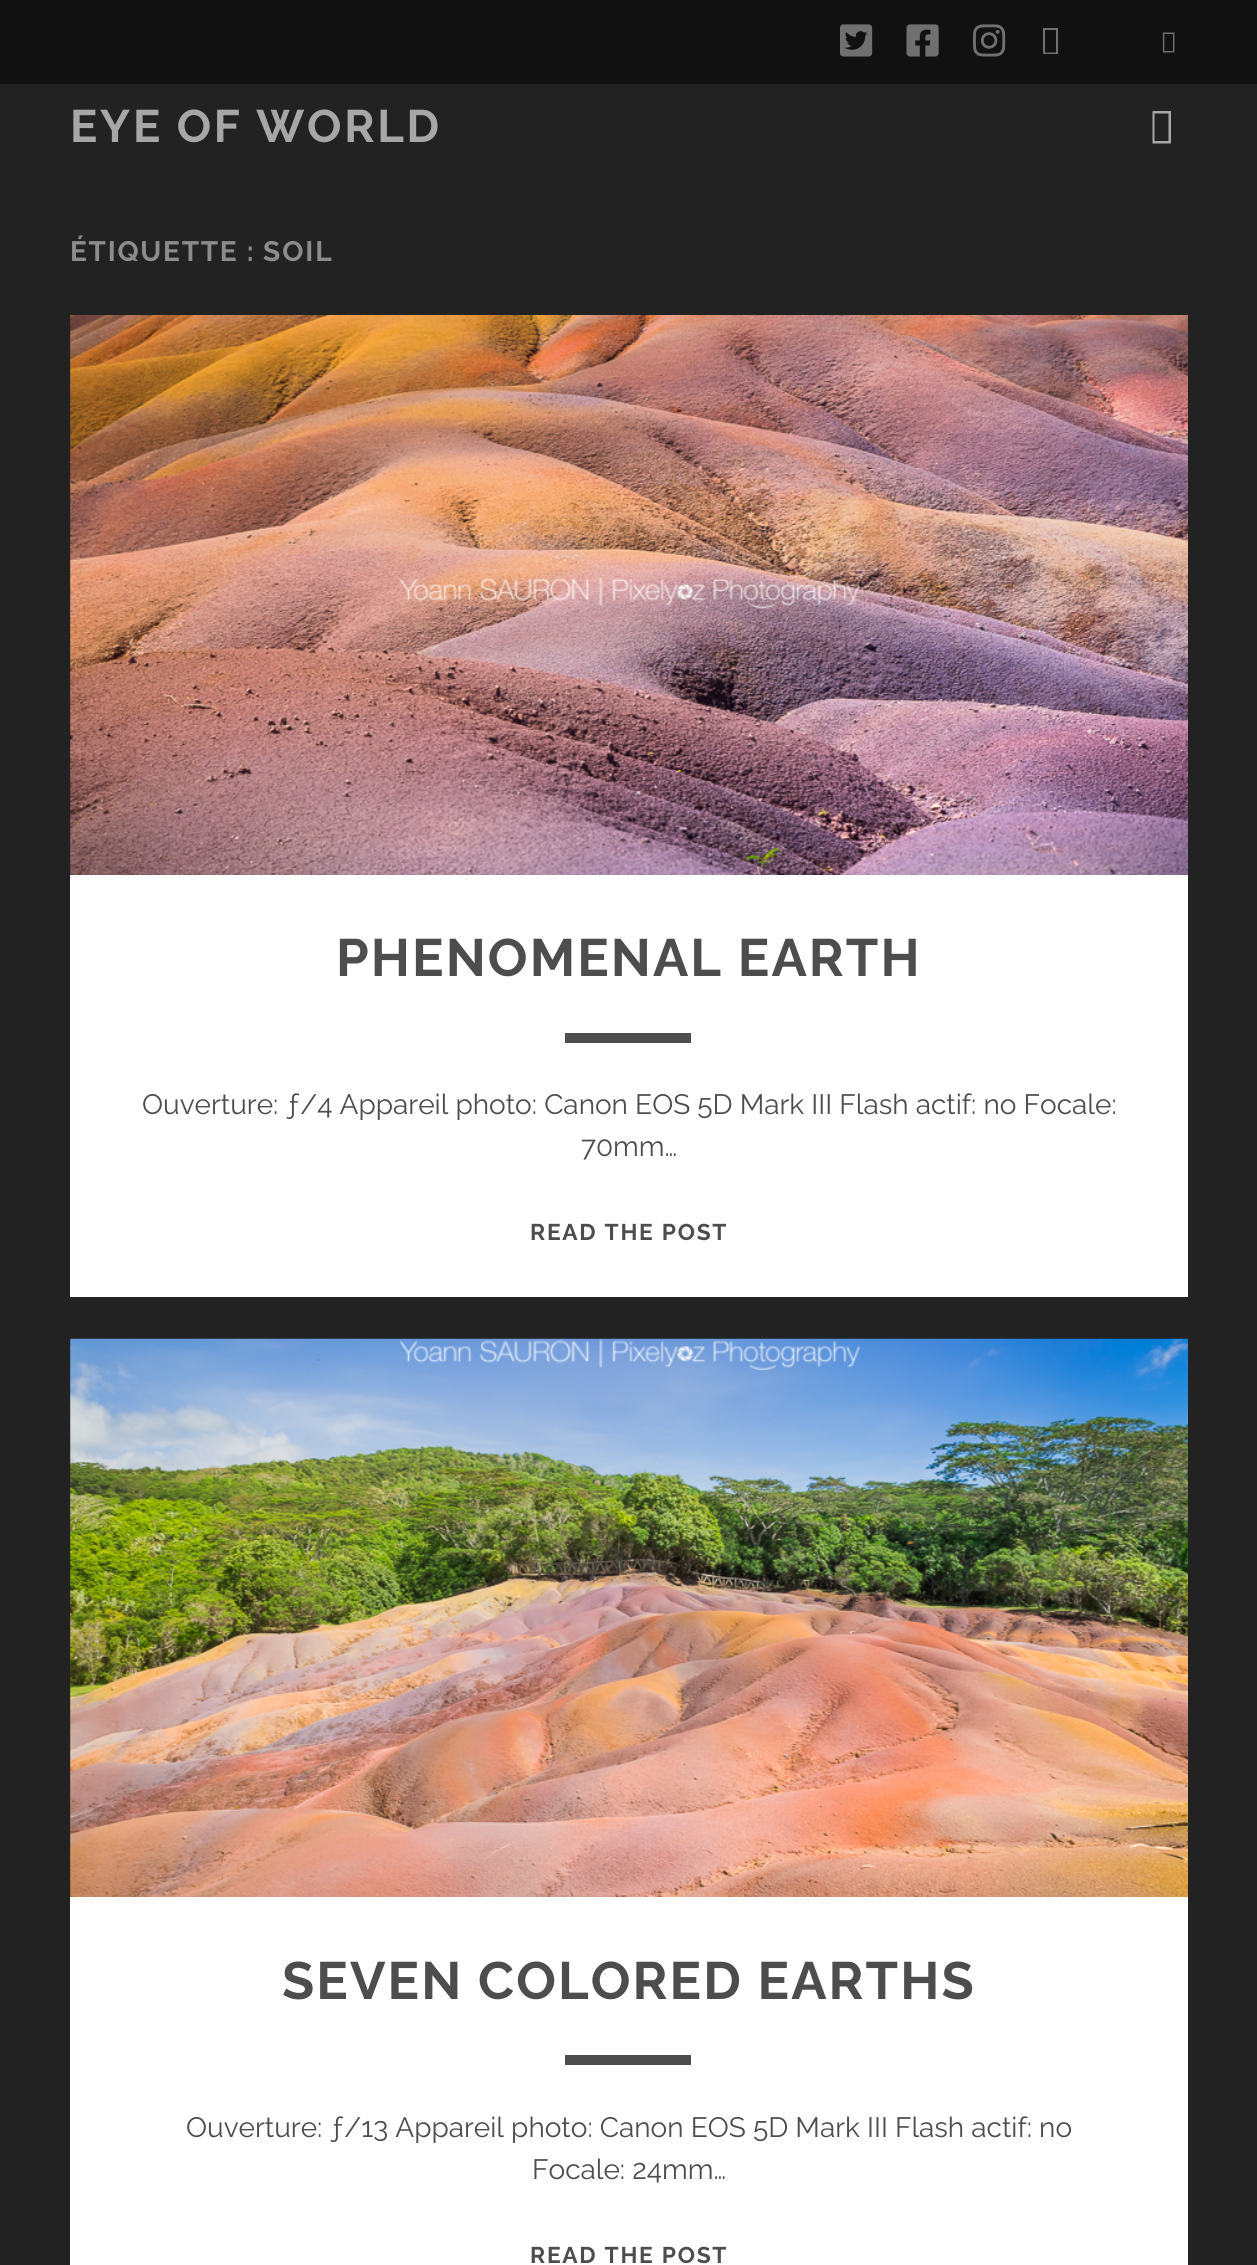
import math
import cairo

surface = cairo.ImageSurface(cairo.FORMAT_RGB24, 1257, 2265)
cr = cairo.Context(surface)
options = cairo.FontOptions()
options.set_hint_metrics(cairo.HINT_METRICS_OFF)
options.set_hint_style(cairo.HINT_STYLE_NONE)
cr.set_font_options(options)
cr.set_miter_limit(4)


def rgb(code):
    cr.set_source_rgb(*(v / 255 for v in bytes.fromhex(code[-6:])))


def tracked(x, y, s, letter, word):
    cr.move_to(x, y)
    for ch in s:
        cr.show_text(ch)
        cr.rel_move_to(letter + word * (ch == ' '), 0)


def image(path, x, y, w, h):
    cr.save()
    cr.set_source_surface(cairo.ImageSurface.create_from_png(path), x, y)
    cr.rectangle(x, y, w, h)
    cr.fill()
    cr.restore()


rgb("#222222")
cr.paint()
rgb("#111111")
cr.rectangle(0, 0, 1257, 84)
cr.fill()
image("img/1.png", 840, 24, 33, 33)
image("img/2.png", 906, 24, 33, 33)
image("img/3.png", 973, 24, 33, 33)
rgb("#707070")
cr.new_path()
cr.move_to(1043, 54)
cr.line_to(1043, 28)
cr.line_to(1058, 28)
cr.line_to(1058, 54)
cr.close_path()
cr.move_to(1045, 52.5)
cr.line_to(1056, 52.5)
cr.line_to(1056, 30)
cr.line_to(1045, 30)
cr.close_path()
cr.fill()
image("img/4.png", 1162, 32, 13, 21)
rgb("#a7a7a7")
cr.new_path()
cr.move_to(1152.5, 143.5)
cr.line_to(1152.5, 111)
cr.line_to(1171, 111)
cr.line_to(1171, 143.5)
cr.close_path()
cr.move_to(1154.5, 141)
cr.line_to(1168.5, 141)
cr.line_to(1168.5, 113.5)
cr.line_to(1154.5, 113.5)
cr.close_path()
cr.fill()
image("img/5.png", 70, 315, 1118, 560)
rgb("#ffffff")
cr.rectangle(70, 875, 1118, 422)
cr.fill()
rgb("#4d4d4d")
cr.rectangle(565, 1033, 126, 10)
cr.fill()
image("img/6.png", 70, 1338, 1118, 559)
rgb("#ffffff")
cr.rectangle(70, 1897, 1118, 368)
cr.fill()
rgb("#4d4d4d")
cr.rectangle(565, 2055, 126, 10)
cr.fill()
cr.select_font_face("Raleway", cairo.FONT_SLANT_NORMAL, cairo.FONT_WEIGHT_BOLD)
cr.set_font_size(45.5)
rgb("#a7a7a7")
tracked(70, 142, "EYE OF WORLD", 2.75, 0)
cr.set_font_size(28)
rgb("#8c8c8c")
tracked(70, 261, "ÉTIQUETTE :", 1.75, 0)
tracked(263, 261, "SOIL", 2, 0)
cr.set_font_size(52.5)
rgb("#4d4d4d")
tracked(336, 976, "PHENOMENAL EARTH", 2.1, 0)
cr.select_font_face("Raleway")
cr.set_font_size(28)
cr.move_to(142, 1114)
cr.show_text("Ouverture: ƒ/4 Appareil photo: Canon EOS 5D Mark III Flash actif: no Focale:")
cr.move_to(581, 1156)
cr.show_text("70mm…")
cr.select_font_face("Raleway", cairo.FONT_SLANT_NORMAL, cairo.FONT_WEIGHT_BOLD)
cr.set_font_size(22.75)
tracked(530, 1240, "READ THE POST", 1.75, 0)
cr.set_font_size(52.5)
tracked(282, 1999, "SEVEN COLORED EARTHS", 2.1, 0)
cr.select_font_face("Raleway")
cr.set_font_size(28)
cr.move_to(186, 2137)
cr.show_text("Ouverture: ƒ/13 Appareil photo: Canon EOS 5D Mark III Flash actif: no")
cr.move_to(532, 2179)
cr.show_text("Focale: 24mm…")
cr.select_font_face("Raleway", cairo.FONT_SLANT_NORMAL, cairo.FONT_WEIGHT_BOLD)
cr.set_font_size(22.75)
tracked(530, 2263, "READ THE POST", 1.75, 0)
surface.write_to_png("page.png")
